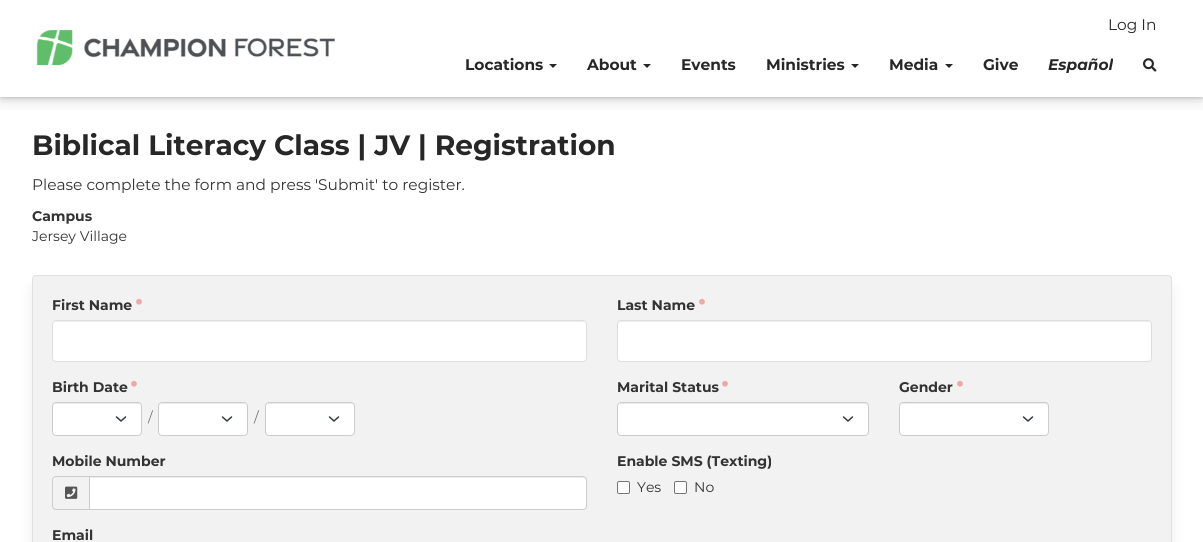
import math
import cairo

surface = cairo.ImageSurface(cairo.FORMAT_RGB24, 1203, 542)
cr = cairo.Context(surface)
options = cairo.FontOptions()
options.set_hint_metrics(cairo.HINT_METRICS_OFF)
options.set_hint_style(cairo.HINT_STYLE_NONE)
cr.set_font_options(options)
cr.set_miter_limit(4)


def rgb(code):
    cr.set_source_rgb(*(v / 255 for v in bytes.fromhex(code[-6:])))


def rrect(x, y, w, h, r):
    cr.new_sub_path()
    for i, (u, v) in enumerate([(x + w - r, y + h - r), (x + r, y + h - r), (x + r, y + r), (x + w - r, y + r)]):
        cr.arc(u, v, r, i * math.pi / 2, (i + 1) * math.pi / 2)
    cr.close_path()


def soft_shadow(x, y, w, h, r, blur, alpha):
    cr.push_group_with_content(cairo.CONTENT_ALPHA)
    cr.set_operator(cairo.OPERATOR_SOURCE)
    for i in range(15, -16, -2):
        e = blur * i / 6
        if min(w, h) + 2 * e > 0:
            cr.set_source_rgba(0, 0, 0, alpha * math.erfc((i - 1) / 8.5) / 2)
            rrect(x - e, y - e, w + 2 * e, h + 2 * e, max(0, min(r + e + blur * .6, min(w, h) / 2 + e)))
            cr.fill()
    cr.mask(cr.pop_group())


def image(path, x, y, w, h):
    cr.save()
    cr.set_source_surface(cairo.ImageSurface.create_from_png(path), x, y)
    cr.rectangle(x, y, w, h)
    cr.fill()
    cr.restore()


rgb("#ffffff")
cr.paint()
cr.save()
cr.rectangle(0, 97, 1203, 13)
cr.clip()
rgb("#000000")
soft_shadow(0, 8, 1203, 97, 0, 8, 0.07)
cr.restore()
cr.save()
cr.rectangle(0, 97, 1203, 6)
cr.clip()
rgb("#000000")
soft_shadow(0, 4, 1203, 97, 0, 4, 0.07)
cr.restore()
cr.save()
cr.rectangle(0, 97, 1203, 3)
cr.clip()
rgb("#000000")
soft_shadow(0, 2, 1203, 97, 0, 2, 0.07)
cr.restore()
cr.save()
cr.rectangle(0, 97, 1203, 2)
cr.clip()
rgb("#000000")
soft_shadow(0, 1, 1203, 97, 0, 1, 0.07)
cr.restore()
image("img/1.png", 36, 30, 299, 36)
rgb("#272727")
cr.new_path()
cr.move_to(549, 64)
cr.line_to(557, 64)
cr.line_to(553, 68)
cr.close_path()
cr.fill()
cr.new_path()
cr.move_to(643, 64)
cr.line_to(651, 64)
cr.line_to(647, 68)
cr.close_path()
cr.fill()
cr.new_path()
cr.move_to(851, 64)
cr.line_to(859, 64)
cr.line_to(855, 68)
cr.close_path()
cr.fill()
cr.new_path()
cr.move_to(945, 64)
cr.line_to(953, 64)
cr.line_to(949, 68)
cr.close_path()
cr.fill()
image("img/2.png", 1143, 58, 14, 14)
rgb("#000000")
soft_shadow(35, 288, 1134, 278, 1, 7.5, 0.1)
rgb("#f2f2f2")
rrect(32.5, 275.5, 1139, 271, 3.5)
cr.fill_preserve()
rgb("#e0e0e0")
cr.set_line_width(1)
cr.stroke()
image("img/3.png", 136, 298, 6, 7)
rgb("#ffffff")
rrect(52, 320, 535, 42, 4)
cr.fill()
rgb("#ececec")
cr.new_path()
cr.move_to(56, 322)
cr.line_to(583, 322)
cr.curve_to(585, 322, 586, 323, 586, 325)
cr.line_to(585, 322)
cr.line_to(583, 321)
cr.line_to(56, 321)
cr.curve_to(54, 321, 53, 323, 53, 325)
cr.curve_to(53, 323, 54, 322, 56, 322)
cr.close_path()
cr.fill()
rrect(52.5, 320.5, 534, 41, 3.5)
rgb("#dddddd")
cr.stroke()
image("img/3.png", 699, 298, 6, 7)
rgb("#ffffff")
rrect(617, 320, 535, 42, 4)
cr.fill()
rgb("#ececec")
cr.new_path()
cr.move_to(621, 322)
cr.line_to(1148, 322)
cr.curve_to(1150, 322, 1151, 323, 1151, 325)
cr.line_to(1150, 322)
cr.line_to(1148, 321)
cr.line_to(621, 321)
cr.curve_to(619, 321, 618, 323, 618, 325)
cr.curve_to(618, 323, 619, 322, 621, 322)
cr.close_path()
cr.fill()
rrect(617.5, 320.5, 534, 41, 3.5)
rgb("#dddddd")
cr.stroke()
image("img/3.png", 131, 380, 6, 7)
rgb("#ffffff")
rrect(52, 402, 90, 34, 4)
cr.fill()
cr.new_path()
cr.move_to(116.5, 417)
cr.line_to(121, 421)
cr.line_to(125.5, 417)
rgb("#343a40")
cr.set_line_width(1.5)
cr.set_line_cap(cairo.LINE_CAP_ROUND)
cr.set_line_join(cairo.LINE_JOIN_ROUND)
cr.stroke()
rgb("#ececec")
cr.new_path()
cr.move_to(56, 404)
cr.line_to(138, 404)
cr.curve_to(140, 404, 141, 405, 141, 407)
cr.curve_to(141, 399, 128, 403, 124, 403)
cr.line_to(70, 403)
cr.curve_to(66, 403, 53, 399, 53, 407)
cr.curve_to(53, 405, 54, 404, 56, 404)
cr.close_path()
cr.fill()
rrect(52.5, 402.5, 89, 33, 3.5)
rgb("#cccccc")
cr.set_line_width(1)
cr.set_line_cap(cairo.LINE_CAP_BUTT)
cr.set_line_join(cairo.LINE_JOIN_MITER)
cr.stroke()
rgb("#ffffff")
rrect(158, 402, 90, 34, 4)
cr.fill()
cr.new_path()
cr.move_to(222.5, 417)
cr.line_to(227, 421)
cr.line_to(231.5, 417)
rgb("#343a40")
cr.set_line_width(1.5)
cr.set_line_cap(cairo.LINE_CAP_ROUND)
cr.set_line_join(cairo.LINE_JOIN_ROUND)
cr.stroke()
rgb("#ececec")
cr.new_path()
cr.move_to(162, 404)
cr.line_to(244, 404)
cr.curve_to(246, 404, 247, 405, 247, 407)
cr.curve_to(247, 399, 234, 403, 230, 403)
cr.line_to(176, 403)
cr.curve_to(172, 403, 159, 399, 159, 407)
cr.curve_to(159, 405, 160, 404, 162, 404)
cr.close_path()
cr.fill()
rrect(158.5, 402.5, 89, 33, 3.5)
rgb("#cccccc")
cr.set_line_width(1)
cr.set_line_cap(cairo.LINE_CAP_BUTT)
cr.set_line_join(cairo.LINE_JOIN_MITER)
cr.stroke()
rgb("#ffffff")
rrect(265, 402, 90, 34, 4)
cr.fill()
cr.new_path()
cr.move_to(329.5, 417)
cr.line_to(334, 421)
cr.line_to(338.5, 417)
rgb("#343a40")
cr.set_line_width(1.5)
cr.set_line_cap(cairo.LINE_CAP_ROUND)
cr.set_line_join(cairo.LINE_JOIN_ROUND)
cr.stroke()
rgb("#ececec")
cr.new_path()
cr.move_to(269, 404)
cr.line_to(351, 404)
cr.curve_to(353, 404, 354, 405, 354, 407)
cr.curve_to(354, 399, 341, 403, 337, 403)
cr.line_to(283, 403)
cr.curve_to(279, 403, 266, 399, 266, 407)
cr.curve_to(266, 405, 267, 404, 269, 404)
cr.close_path()
cr.fill()
rrect(265.5, 402.5, 89, 33, 3.5)
rgb("#cccccc")
cr.set_line_width(1)
cr.set_line_cap(cairo.LINE_CAP_BUTT)
cr.set_line_join(cairo.LINE_JOIN_MITER)
cr.stroke()
image("img/3.png", 722, 380, 6, 7)
rgb("#ffffff")
rrect(617, 402, 252, 34, 4)
cr.fill()
cr.new_path()
cr.move_to(843.5, 417)
cr.line_to(848, 421)
cr.line_to(852.5, 417)
rgb("#343a40")
cr.set_line_width(1.5)
cr.set_line_cap(cairo.LINE_CAP_ROUND)
cr.set_line_join(cairo.LINE_JOIN_ROUND)
cr.stroke()
rgb("#ececec")
cr.new_path()
cr.move_to(621, 404)
cr.line_to(866, 404)
cr.line_to(868, 405)
cr.line_to(868, 407)
cr.curve_to(868, 405, 867, 403, 865, 403)
cr.line_to(621, 403)
cr.curve_to(619, 403, 618, 405, 618, 407)
cr.curve_to(618, 405, 619, 404, 621, 404)
cr.close_path()
cr.fill()
rrect(617.5, 402.5, 251, 33, 3.5)
rgb("#cccccc")
cr.set_line_width(1)
cr.set_line_cap(cairo.LINE_CAP_BUTT)
cr.set_line_join(cairo.LINE_JOIN_MITER)
cr.stroke()
image("img/3.png", 957, 380, 6, 7)
rgb("#ffffff")
rrect(899, 402, 150, 34, 4)
cr.fill()
cr.new_path()
cr.move_to(1023.5, 417)
cr.line_to(1028, 421)
cr.line_to(1032.5, 417)
rgb("#343a40")
cr.set_line_width(1.5)
cr.set_line_cap(cairo.LINE_CAP_ROUND)
cr.set_line_join(cairo.LINE_JOIN_ROUND)
cr.stroke()
rgb("#ececec")
cr.new_path()
cr.move_to(903, 404)
cr.line_to(1045, 404)
cr.curve_to(1047, 404, 1048, 405, 1048, 407)
cr.curve_to(1048, 405, 1048, 404, 1046, 403)
cr.line_to(927, 403)
cr.curve_to(919, 403, 900, 398, 900, 407)
cr.curve_to(900, 405, 901, 404, 903, 404)
cr.close_path()
cr.fill()
rrect(899.5, 402.5, 149, 33, 3.5)
rgb("#cccccc")
cr.set_line_width(1)
cr.set_line_cap(cairo.LINE_CAP_BUTT)
cr.set_line_join(cairo.LINE_JOIN_MITER)
cr.stroke()
cr.set_fill_rule(cairo.FILL_RULE_EVEN_ODD)
cr.new_path()
cr.move_to(56, 476)
cr.line_to(89, 476)
cr.line_to(89, 510)
cr.line_to(56, 510)
cr.curve_to(54, 510, 52, 508, 52, 506)
cr.line_to(52, 480)
cr.curve_to(52, 478, 54, 476, 56, 476)
cr.close_path()
cr.move_to(56, 477)
cr.line_to(89, 477)
cr.line_to(89, 509)
cr.line_to(56, 509)
cr.curve_to(54.5, 509, 53, 507.5, 53, 506)
cr.line_to(53, 480)
cr.curve_to(53, 478.5, 54.5, 477, 56, 477)
cr.close_path()
cr.fill()
image("img/4.png", 65, 486, 13, 13)
rgb("#ffffff")
cr.new_path()
cr.move_to(89, 476)
cr.line_to(583, 476)
cr.curve_to(585, 476, 587, 478, 587, 480)
cr.line_to(587, 506)
cr.curve_to(587, 508, 585, 510, 583, 510)
cr.line_to(89, 510)
cr.close_path()
cr.fill()
rgb("#ececec")
cr.set_fill_rule(cairo.FILL_RULE_WINDING)
cr.new_path()
cr.move_to(90, 478)
cr.line_to(583, 478)
cr.curve_to(585, 478, 586, 479, 586, 481)
cr.curve_to(586, 479, 585, 477, 583, 477)
cr.line_to(90, 477)
cr.close_path()
cr.fill()
cr.new_path()
cr.move_to(89.5, 476.5)
cr.line_to(583, 476.5)
cr.curve_to(585, 476.5, 586.5, 478, 586.5, 480)
cr.line_to(586.5, 506)
cr.curve_to(586.5, 508, 585, 509.5, 583, 509.5)
cr.line_to(89.5, 509.5)
cr.close_path()
rgb("#cccccc")
cr.stroke()
rgb("#ffffff")
rrect(617.5, 481.5, 12, 12, 1.5)
cr.fill_preserve()
rgb("#767676")
cr.stroke()
rgb("#ffffff")
rrect(674.5, 481.5, 12, 12, 1.5)
cr.fill_preserve()
rgb("#767676")
cr.stroke()
cr.select_font_face("Montserrat")
cr.set_font_size(15.4)
rgb("#272727")
cr.move_to(1108, 30)
cr.show_text("Log In")
cr.select_font_face("Montserrat", cairo.FONT_SLANT_NORMAL, cairo.FONT_WEIGHT_BOLD)
for x, y, s in [
    (465, 70, "Locations"),
    (587, 70, "About"),
    (681, 70, "Events"),
    (766, 70, "Ministries"),
    (889, 70, "Media"),
    (983, 70, "Give"),
]:
    cr.move_to(x, y)
    cr.show_text(s)
cr.select_font_face("Montserrat", cairo.FONT_SLANT_ITALIC, cairo.FONT_WEIGHT_BOLD)
cr.move_to(1048, 70)
cr.show_text("Español")
cr.select_font_face("Montserrat", cairo.FONT_SLANT_NORMAL, cairo.FONT_WEIGHT_BOLD)
cr.set_font_size(28)
cr.move_to(32, 155)
cr.show_text("Biblical Literacy Class | JV | Registration")
cr.select_font_face("Montserrat")
cr.set_font_size(15.4)
rgb("#333333")
cr.move_to(32, 190)
cr.show_text("Please complete the form and press 'Submit' to register.")
cr.select_font_face("Montserrat", cairo.FONT_SLANT_NORMAL, cairo.FONT_WEIGHT_BOLD)
cr.set_font_size(14)
cr.move_to(32, 221)
cr.show_text("Campus")
cr.select_font_face("Montserrat")
cr.move_to(32, 241)
cr.show_text("Jersey Village")
cr.select_font_face("Montserrat", cairo.FONT_SLANT_NORMAL, cairo.FONT_WEIGHT_BOLD)
for x, y, s in [
    (52, 310, "First Name"),
    (617, 310, "Last Name"),
    (52, 392, "Birth Date"),
]:
    cr.move_to(x, y)
    cr.show_text(s)
cr.select_font_face("Montserrat")
rgb("#777777")
cr.move_to(148, 422)
cr.show_text("/")
cr.move_to(254, 422)
cr.show_text("/")
cr.select_font_face("Montserrat", cairo.FONT_SLANT_NORMAL, cairo.FONT_WEIGHT_BOLD)
rgb("#333333")
for x, y, s in [
    (617, 392, "Marital Status"),
    (899, 392, "Gender"),
    (52, 466, "Mobile Number"),
    (617, 466, "Enable SMS (Texting)"),
]:
    cr.move_to(x, y)
    cr.show_text(s)
cr.select_font_face("Montserrat")
cr.move_to(637, 492)
cr.show_text("Yes")
cr.move_to(694, 492)
cr.show_text("No")
cr.select_font_face("Montserrat", cairo.FONT_SLANT_NORMAL, cairo.FONT_WEIGHT_BOLD)
cr.move_to(52, 540)
cr.show_text("Email")
surface.write_to_png("page.png")
